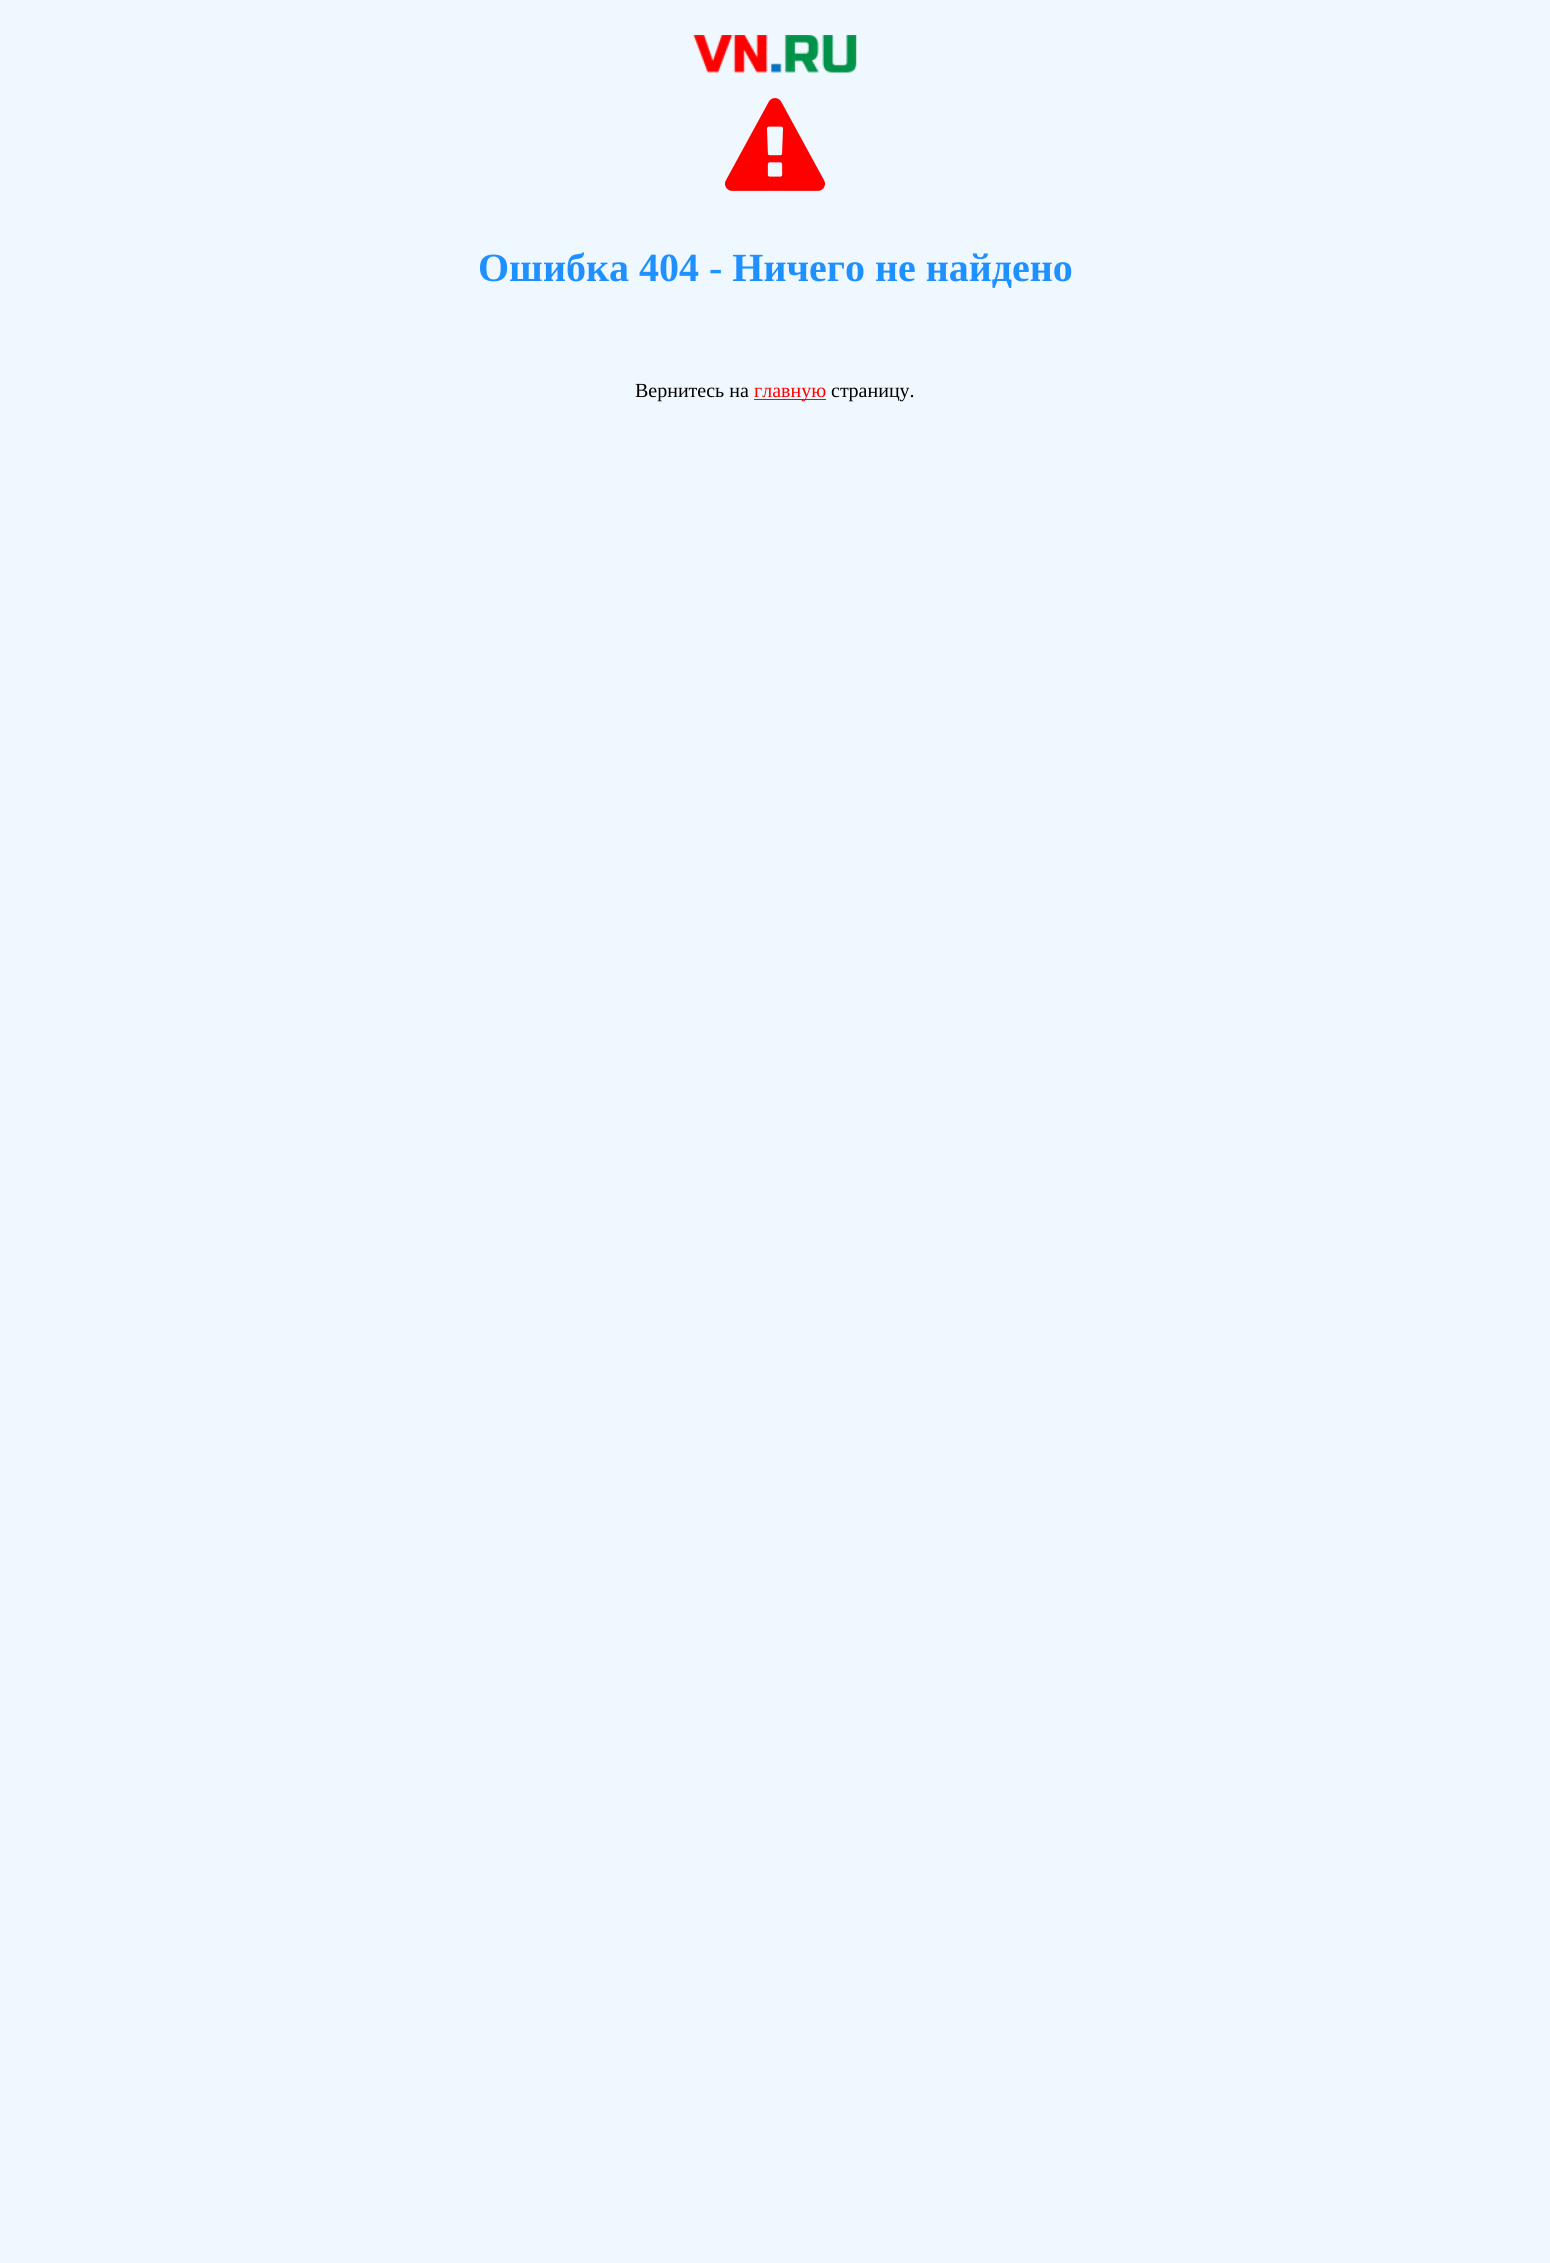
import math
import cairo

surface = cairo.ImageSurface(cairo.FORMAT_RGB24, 1550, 2263)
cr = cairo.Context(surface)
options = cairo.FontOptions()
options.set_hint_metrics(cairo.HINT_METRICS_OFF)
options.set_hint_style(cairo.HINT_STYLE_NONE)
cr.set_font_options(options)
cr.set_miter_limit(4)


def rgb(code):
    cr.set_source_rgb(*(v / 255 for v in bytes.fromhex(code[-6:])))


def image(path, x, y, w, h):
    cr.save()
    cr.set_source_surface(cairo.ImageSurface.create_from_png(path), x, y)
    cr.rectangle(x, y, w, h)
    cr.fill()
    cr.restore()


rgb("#f0f8ff")
cr.paint()
image("img/1.png", 693, 35, 164, 38)
image("img/2.png", 725, 98, 100, 93)
rgb("#ff0000")
cr.rectangle(754, 399, 72, 1)
cr.fill()
cr.select_font_face("Liberation Serif", cairo.FONT_SLANT_NORMAL, cairo.FONT_WEIGHT_BOLD)
cr.set_font_size(40)
rgb("#1e90ff")
cr.move_to(478, 281)
cr.show_text("Ошибка 404 - Ничего не найдено")
cr.select_font_face("Liberation Serif")
cr.set_font_size(20)
rgb("#000000")
cr.move_to(635, 397)
cr.show_text("Вернитесь на")
rgb("#ff0000")
cr.move_to(754, 397)
cr.show_text("главную")
rgb("#000000")
cr.move_to(831, 397)
cr.show_text("страницу.")
surface.write_to_png("page.png")
